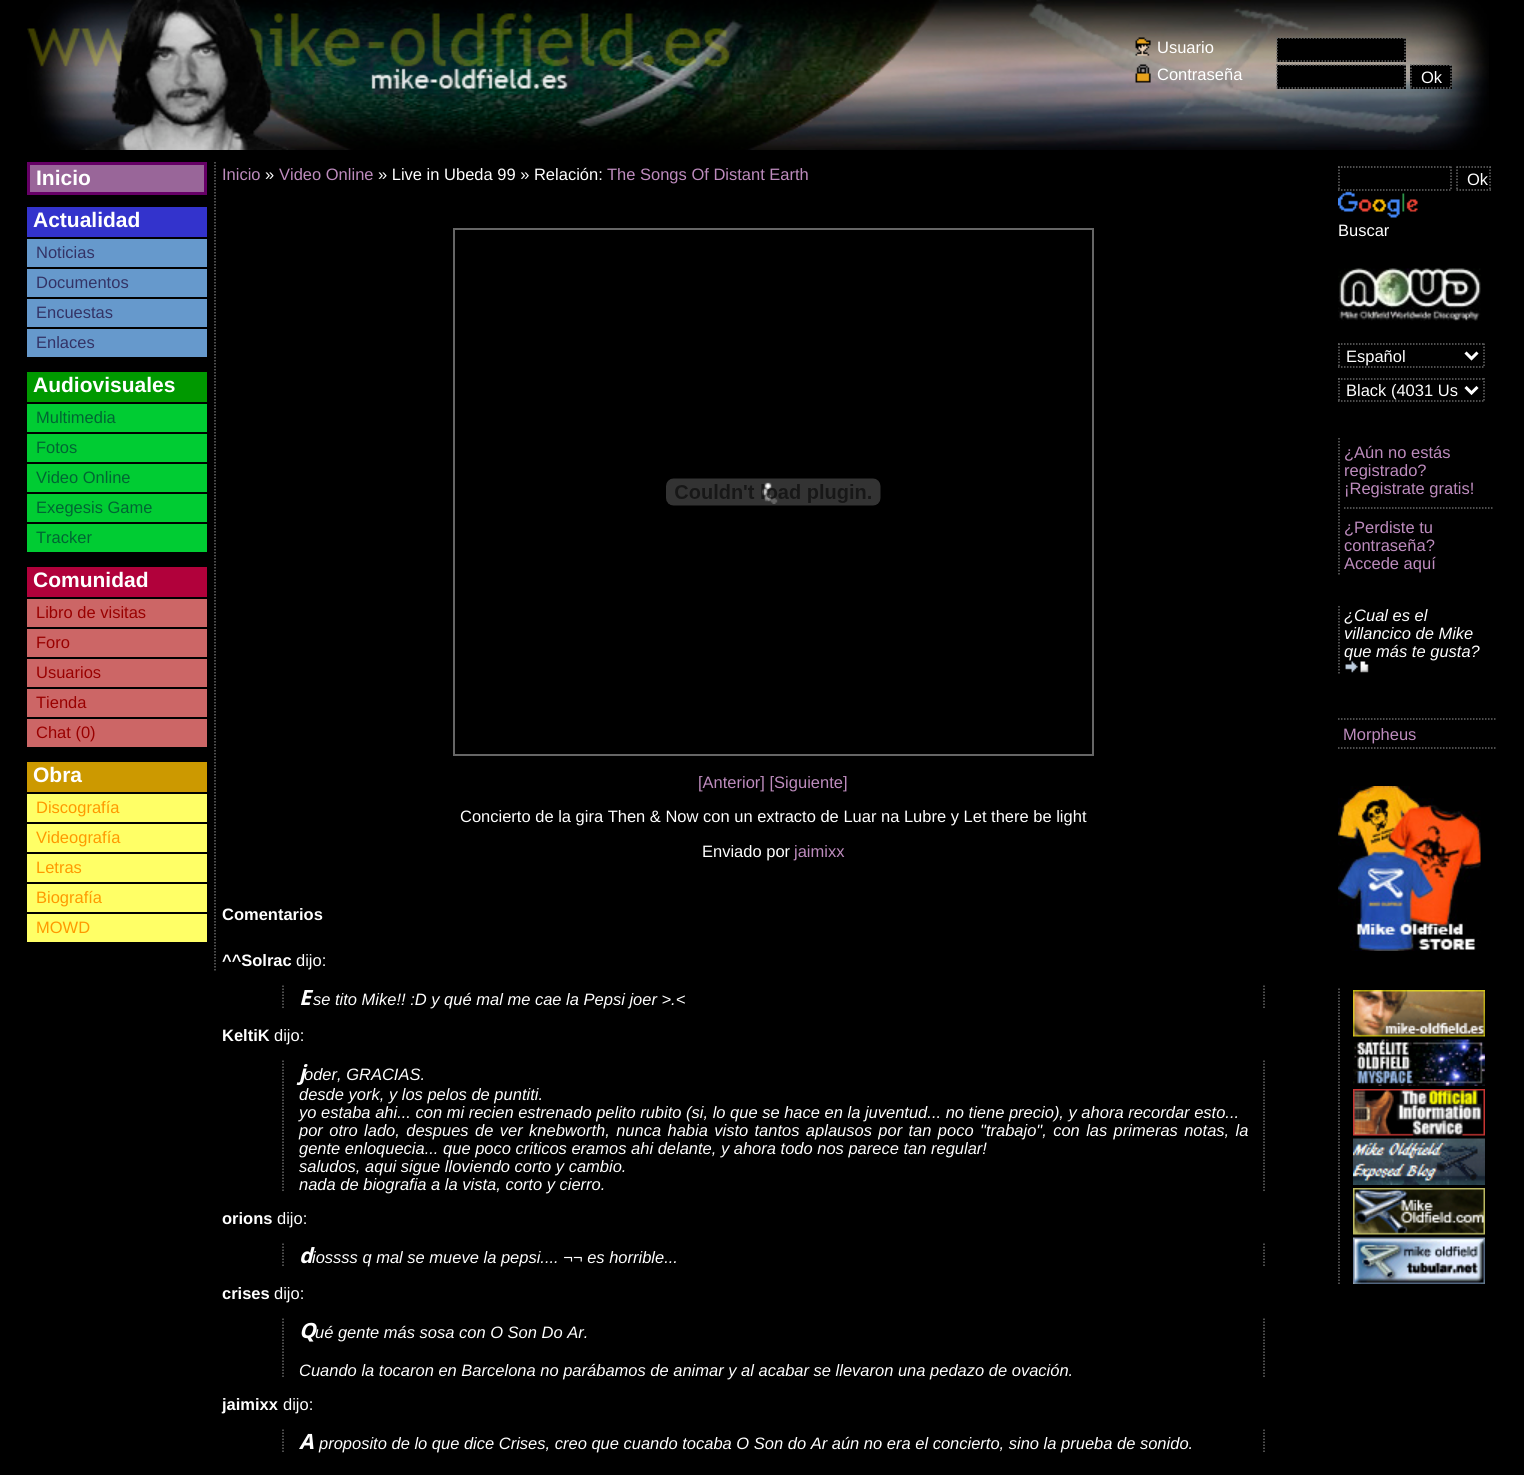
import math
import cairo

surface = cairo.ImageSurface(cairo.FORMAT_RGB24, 1524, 1475)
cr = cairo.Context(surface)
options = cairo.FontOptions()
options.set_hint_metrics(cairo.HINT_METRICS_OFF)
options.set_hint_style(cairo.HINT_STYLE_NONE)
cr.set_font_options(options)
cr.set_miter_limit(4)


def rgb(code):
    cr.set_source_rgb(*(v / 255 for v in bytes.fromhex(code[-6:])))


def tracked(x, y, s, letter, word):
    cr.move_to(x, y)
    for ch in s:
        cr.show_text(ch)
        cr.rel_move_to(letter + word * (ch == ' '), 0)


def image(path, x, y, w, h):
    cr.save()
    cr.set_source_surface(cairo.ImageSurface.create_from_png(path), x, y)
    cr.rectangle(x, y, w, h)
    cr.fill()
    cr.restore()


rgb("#000000")
cr.paint()
image("img/1.png", 27, 0, 1462, 150)
image("img/2.png", 1135, 37, 16, 19)
rgb("#000000")
cr.rectangle(1277, 38, 129, 24)
cr.fill()
cr.new_path()
cr.move_to(1276.5, 38)
cr.line_to(1405.5, 38)
rgb("#666666")
cr.set_line_width(1.5)
cr.set_dash([1.5, 1.5])
cr.stroke()
cr.new_path()
cr.move_to(1405, 37.5)
cr.line_to(1405, 61.5)
cr.stroke()
cr.new_path()
cr.move_to(1276.5, 61)
cr.line_to(1405.5, 61)
cr.stroke()
cr.new_path()
cr.move_to(1277, 37.5)
cr.line_to(1277, 61.5)
cr.stroke()
image("img/3.png", 1135, 64, 16, 19)
rgb("#000000")
cr.rectangle(1277, 65, 129, 24)
cr.fill()
cr.new_path()
cr.move_to(1276.5, 65)
cr.line_to(1405.5, 65)
rgb("#666666")
cr.stroke()
cr.new_path()
cr.move_to(1405, 64.5)
cr.line_to(1405, 88.5)
cr.stroke()
cr.new_path()
cr.move_to(1276.5, 88)
cr.line_to(1405.5, 88)
cr.stroke()
cr.new_path()
cr.move_to(1277, 64.5)
cr.line_to(1277, 88.5)
cr.stroke()
rgb("#000000")
cr.rectangle(1410, 65, 42, 24)
cr.fill()
cr.new_path()
cr.move_to(1410, 65)
cr.line_to(1452, 65)
cr.move_to(1451, 64.5)
cr.line_to(1451, 88.5)
cr.move_to(1410, 88)
cr.line_to(1452, 88)
cr.move_to(1411, 64.5)
cr.line_to(1411, 88.5)
rgb("#666666")
cr.stroke()
cr.new_path()
cr.move_to(215, 162)
cr.line_to(215, 972)
cr.stroke()
rgb("#996699")
cr.rectangle(28.5, 163.5, 177, 30)
cr.fill_preserve()
rgb("#660066")
cr.set_line_width(3)
cr.set_dash([])
cr.stroke()
for x, y, w, h, color in [
    (27, 207, 180, 30, "#3333cc"),
    (27, 239, 180, 28, "#6699cc"),
    (27, 269, 180, 28, "#6699cc"),
    (27, 299, 180, 28, "#6699cc"),
    (27, 329, 180, 28, "#6699cc"),
    (27, 372, 180, 30, "#009900"),
    (27, 404, 180, 28, "#00cc33"),
    (27, 434, 180, 28, "#00cc33"),
    (27, 464, 180, 28, "#00cc33"),
    (27, 494, 180, 28, "#00cc33"),
    (27, 524, 180, 28, "#00cc33"),
    (27, 567, 180, 30, "#b1013b"),
    (27, 599, 180, 28, "#cc6666"),
    (27, 629, 180, 28, "#cc6666"),
    (27, 659, 180, 28, "#cc6666"),
    (27, 689, 180, 28, "#cc6666"),
    (27, 719, 180, 28, "#cc6666"),
    (27, 762, 180, 30, "#cc9900"),
    (27, 794, 180, 28, "#ffff66"),
    (27, 824, 180, 28, "#ffff66"),
    (27, 854, 180, 28, "#ffff66"),
    (27, 884, 180, 28, "#ffff66"),
    (27, 914, 180, 28, "#ffff66"),
]:
    rgb(color)
    cr.rectangle(x, y, w, h)
    cr.fill()
image("img/4.png", 762, 482, 16, 22)
cr.rectangle(454, 229, 639, 526)
rgb("#666666")
cr.set_line_width(2)
cr.stroke()
image("img/5.png", 666, 478, 215, 28)
cr.new_path()
cr.move_to(1264, 985.5)
cr.line_to(1264, 1009.5)
cr.set_line_width(1.5)
cr.set_dash([1.5, 1.5])
cr.stroke()
cr.new_path()
cr.move_to(283, 985.5)
cr.line_to(283, 1009.5)
cr.stroke()
cr.new_path()
cr.move_to(1264, 1060.5)
cr.line_to(1264, 1192.5)
cr.stroke()
cr.new_path()
cr.move_to(283, 1060.5)
cr.line_to(283, 1192.5)
cr.stroke()
cr.new_path()
cr.move_to(1264, 1243.5)
cr.line_to(1264, 1267.5)
cr.stroke()
cr.new_path()
cr.move_to(283, 1243.5)
cr.line_to(283, 1267.5)
cr.stroke()
cr.new_path()
cr.move_to(1264, 1318.5)
cr.line_to(1264, 1378.5)
cr.stroke()
cr.new_path()
cr.move_to(283, 1318.5)
cr.line_to(283, 1378.5)
cr.stroke()
cr.new_path()
cr.move_to(1264, 1429.5)
cr.line_to(1264, 1453.5)
cr.stroke()
cr.new_path()
cr.move_to(283, 1429.5)
cr.line_to(283, 1453.5)
cr.stroke()
cr.new_path()
cr.move_to(1338, 167)
cr.line_to(1452, 167)
cr.stroke()
cr.new_path()
cr.move_to(1451, 166.5)
cr.line_to(1451, 190.5)
cr.stroke()
cr.new_path()
cr.move_to(1338, 190)
cr.line_to(1452, 190)
cr.stroke()
cr.new_path()
cr.move_to(1339, 166.5)
cr.line_to(1339, 190.5)
cr.stroke()
cr.new_path()
cr.move_to(1456.5, 167)
cr.line_to(1491, 167)
cr.move_to(1490, 166.5)
cr.line_to(1490, 190.5)
cr.move_to(1456.5, 190)
cr.line_to(1491, 190)
cr.move_to(1457, 166.5)
cr.line_to(1457, 190.5)
cr.stroke()
image("img/6.png", 1338, 191, 80, 27)
image("img/7.png", 1338, 268, 143, 53)
cr.new_path()
cr.move_to(1338, 344)
cr.line_to(1485, 344)
cr.stroke()
cr.new_path()
cr.move_to(1484, 343.5)
cr.line_to(1484, 367.5)
cr.stroke()
cr.new_path()
cr.move_to(1338, 367)
cr.line_to(1485, 367)
cr.stroke()
cr.new_path()
cr.move_to(1339, 343.5)
cr.line_to(1339, 367.5)
cr.stroke()
cr.new_path()
cr.move_to(1465.5, 352.5)
cr.line_to(1471.5, 358.5)
cr.line_to(1477.5, 352.5)
rgb("#ffffff")
cr.set_line_width(3)
cr.set_dash([])
cr.stroke()
cr.new_path()
cr.move_to(1338, 379)
cr.line_to(1485, 379)
rgb("#666666")
cr.set_line_width(1.5)
cr.set_dash([1.5, 1.5])
cr.stroke()
cr.new_path()
cr.move_to(1484, 378)
cr.line_to(1484, 402)
cr.stroke()
cr.new_path()
cr.move_to(1338, 401)
cr.line_to(1485, 401)
cr.stroke()
cr.new_path()
cr.move_to(1339, 378)
cr.line_to(1339, 402)
cr.stroke()
cr.new_path()
cr.move_to(1465.5, 387)
cr.line_to(1471.5, 393)
cr.line_to(1477.5, 387)
rgb("#ffffff")
cr.set_line_width(3)
cr.set_dash([])
cr.stroke()
cr.new_path()
cr.move_to(1339, 438)
cr.line_to(1339, 576)
rgb("#666666")
cr.set_line_width(1.5)
cr.set_dash([1.5, 1.5])
cr.stroke()
cr.new_path()
cr.move_to(1344, 508)
cr.line_to(1492.5, 508)
cr.stroke()
cr.new_path()
cr.move_to(1339, 606)
cr.line_to(1339, 673.5)
cr.stroke()
image("img/8.png", 1345, 661, 24, 12)
cr.new_path()
cr.move_to(1338, 719)
cr.line_to(1497, 719)
cr.stroke()
cr.new_path()
cr.move_to(1338, 748)
cr.line_to(1497, 748)
cr.stroke()
image("img/9.png", 1338, 786, 143, 165)
cr.new_path()
cr.move_to(1339, 988.5)
cr.line_to(1339, 1285.5)
cr.stroke()
image("img/10.png", 1353, 990, 132, 47)
image("img/11.png", 1353, 1039, 132, 47)
image("img/12.png", 1353, 1089, 132, 47)
image("img/13.png", 1353, 1138, 132, 47)
image("img/14.png", 1353, 1188, 132, 47)
image("img/15.png", 1353, 1237, 132, 47)
cr.select_font_face("Liberation Sans")
cr.set_font_size(16.5)
rgb("#ffffff")
for x, y, s in [
    (1157, 53, "Usuario"),
    (1157, 80, "Contraseña"),
    (1421, 83, "Ok"),
]:
    cr.move_to(x, y)
    cr.show_text(s)
cr.select_font_face("Liberation Sans", cairo.FONT_SLANT_NORMAL, cairo.FONT_WEIGHT_BOLD)
cr.set_font_size(21)
cr.move_to(36, 185)
cr.show_text("Inicio")
cr.move_to(33, 227)
cr.show_text("Actualidad")
cr.select_font_face("Liberation Sans")
cr.set_font_size(16.5)
rgb("#333366")
for x, y, s in [
    (36, 258, "Noticias"),
    (36, 288, "Documentos"),
    (36, 318, "Encuestas"),
    (36, 348, "Enlaces"),
]:
    cr.move_to(x, y)
    cr.show_text(s)
cr.select_font_face("Liberation Sans", cairo.FONT_SLANT_NORMAL, cairo.FONT_WEIGHT_BOLD)
cr.set_font_size(21)
rgb("#ffffff")
cr.move_to(33, 392)
cr.show_text("Audiovisuales")
cr.select_font_face("Liberation Sans")
cr.set_font_size(16.5)
rgb("#006633")
for x, y, s in [
    (36, 423, "Multimedia"),
    (36, 453, "Fotos"),
    (36, 483, "Video Online"),
    (36, 513, "Exegesis Game"),
    (36, 543, "Tracker"),
]:
    cr.move_to(x, y)
    cr.show_text(s)
cr.select_font_face("Liberation Sans", cairo.FONT_SLANT_NORMAL, cairo.FONT_WEIGHT_BOLD)
cr.set_font_size(21)
rgb("#ffffff")
cr.move_to(33, 587)
cr.show_text("Comunidad")
cr.select_font_face("Liberation Sans")
cr.set_font_size(16.5)
rgb("#990000")
for x, y, s in [
    (36, 618, "Libro de visitas"),
    (36, 648, "Foro"),
    (36, 678, "Usuarios"),
    (36, 708, "Tienda"),
    (36, 738, "Chat (0)"),
]:
    cr.move_to(x, y)
    cr.show_text(s)
cr.select_font_face("Liberation Sans", cairo.FONT_SLANT_NORMAL, cairo.FONT_WEIGHT_BOLD)
cr.set_font_size(21)
rgb("#ffffff")
cr.move_to(33, 782)
cr.show_text("Obra")
cr.select_font_face("Liberation Sans")
cr.set_font_size(16.5)
rgb("#ff9900")
for x, y, s in [
    (36, 813, "Discografía"),
    (36, 843, "Videografía"),
    (36, 873, "Letras"),
    (36, 903, "Biografía"),
    (36, 933, "MOWD"),
]:
    cr.move_to(x, y)
    cr.show_text(s)
rgb("#bd8bbd")
cr.move_to(222, 180)
cr.show_text("Inicio")
rgb("#ffffff")
cr.move_to(265, 180)
cr.show_text("»")
rgb("#bd8bbd")
cr.move_to(279, 180)
cr.show_text("Video Online")
rgb("#ffffff")
cr.move_to(378, 180)
cr.show_text("» Live in Ubeda 99 » Relación:")
rgb("#bd8bbd")
cr.move_to(607, 180)
cr.show_text("The Songs Of Distant Earth")
cr.move_to(698, 788)
cr.show_text("[Anterior] [Siguiente]")
rgb("#ffffff")
cr.move_to(460, 822)
cr.show_text("Concierto de la gira Then & Now con un extracto de Luar na Lubre y Let there be light")
cr.move_to(702, 857)
cr.show_text("Enviado por")
rgb("#bd8bbd")
cr.move_to(794, 857)
cr.show_text("jaimixx")
cr.select_font_face("Liberation Sans", cairo.FONT_SLANT_NORMAL, cairo.FONT_WEIGHT_BOLD)
rgb("#ffffff")
cr.move_to(222, 920)
cr.show_text("Comentarios")
cr.move_to(222, 966)
cr.show_text("^^Solrac")
cr.select_font_face("Liberation Sans")
cr.move_to(296, 966)
cr.show_text("dijo:")
cr.select_font_face("Noto Sans", cairo.FONT_SLANT_ITALIC, cairo.FONT_WEIGHT_BOLD)
cr.set_font_size(21)
cr.move_to(299, 1005)
cr.show_text("E")
cr.select_font_face("Liberation Sans", cairo.FONT_SLANT_ITALIC)
cr.set_font_size(16.5)
cr.move_to(313, 1005)
cr.show_text("se tito Mike!! :D y qué mal me cae la Pepsi joer >.<")
cr.select_font_face("Liberation Sans", cairo.FONT_SLANT_NORMAL, cairo.FONT_WEIGHT_BOLD)
cr.move_to(222, 1041)
cr.show_text("KeltiK")
cr.select_font_face("Liberation Sans")
cr.move_to(274, 1041)
cr.show_text("dijo:")
cr.select_font_face("Noto Sans", cairo.FONT_SLANT_ITALIC, cairo.FONT_WEIGHT_BOLD)
cr.set_font_size(21)
cr.move_to(299, 1080)
cr.show_text("j")
cr.select_font_face("Liberation Sans", cairo.FONT_SLANT_ITALIC)
cr.set_font_size(16.5)
for x, y, s in [
    (304, 1080, "oder, GRACIAS."),
    (299, 1100, "desde york, y los pelos de puntiti."),
    (299, 1118, "yo estaba ahi... con mi recien estrenado pelito rubito (si, lo que se hace en la juventud... no tiene precio), y ahora recordar esto..."),
]:
    cr.move_to(x, y)
    cr.show_text(s)
tracked(299, 1136, "por otro lado, despues de ver knebworth, nunca habia visto tantos aplausos por tan poco \"trabajo\", con las primeras notas, la", 0, 1.8)
for x, y, s in [
    (299, 1154, "gente enloquecia... que poco criticos eramos ahi delante, y ahora todo nos parece tan regular!"),
    (299, 1172, "saludos, aqui sigue lloviendo corto y cambio."),
    (299, 1190, "nada de biografia a la vista, corto y cierro."),
]:
    cr.move_to(x, y)
    cr.show_text(s)
cr.select_font_face("Liberation Sans", cairo.FONT_SLANT_NORMAL, cairo.FONT_WEIGHT_BOLD)
cr.move_to(222, 1224)
cr.show_text("orions")
cr.select_font_face("Liberation Sans")
cr.move_to(277, 1224)
cr.show_text("dijo:")
cr.select_font_face("Noto Sans", cairo.FONT_SLANT_ITALIC, cairo.FONT_WEIGHT_BOLD)
cr.set_font_size(21)
cr.move_to(299, 1263)
cr.show_text("d")
cr.select_font_face("Liberation Sans", cairo.FONT_SLANT_ITALIC)
cr.set_font_size(16.5)
cr.move_to(312, 1263)
cr.show_text("iossss q mal se mueve la pepsi.... ¬¬ es horrible...")
cr.select_font_face("Liberation Sans", cairo.FONT_SLANT_NORMAL, cairo.FONT_WEIGHT_BOLD)
cr.move_to(222, 1299)
cr.show_text("crises")
cr.select_font_face("Liberation Sans")
cr.move_to(274, 1299)
cr.show_text("dijo:")
cr.select_font_face("Noto Sans", cairo.FONT_SLANT_ITALIC, cairo.FONT_WEIGHT_BOLD)
cr.set_font_size(21)
cr.move_to(299, 1338)
cr.show_text("Q")
cr.select_font_face("Liberation Sans", cairo.FONT_SLANT_ITALIC)
cr.set_font_size(16.5)
cr.move_to(315, 1338)
cr.show_text("ué gente más sosa con O Son Do Ar.")
cr.move_to(299, 1376)
cr.show_text("Cuando la tocaron en Barcelona no parábamos de animar y al acabar se llevaron una pedazo de ovación.")
cr.select_font_face("Liberation Sans", cairo.FONT_SLANT_NORMAL, cairo.FONT_WEIGHT_BOLD)
cr.move_to(222, 1410)
cr.show_text("jaimixx")
cr.select_font_face("Liberation Sans")
cr.move_to(283, 1410)
cr.show_text("dijo:")
cr.select_font_face("Noto Sans", cairo.FONT_SLANT_ITALIC, cairo.FONT_WEIGHT_BOLD)
cr.set_font_size(21)
cr.move_to(299, 1449)
cr.show_text("A")
cr.select_font_face("Liberation Sans", cairo.FONT_SLANT_ITALIC)
cr.set_font_size(16.5)
cr.move_to(319, 1449)
cr.show_text("proposito de lo que dice Crises, creo que cuando tocaba O Son do Ar aún no era el concierto, sino la prueba de sonido.")
cr.select_font_face("Liberation Sans")
for x, y, s in [
    (1467, 185, "Ok"),
    (1338, 236, "Buscar"),
    (1346, 362, "Español"),
    (1346, 396, "Black (4031 Us"),
]:
    cr.move_to(x, y)
    cr.show_text(s)
rgb("#bd8bbd")
for x, y, s in [
    (1344, 458, "¿Aún no estás"),
    (1344, 476, "registrado?"),
    (1344, 494, "¡Registrate gratis!"),
    (1344, 533, "¿Perdiste tu"),
    (1344, 551, "contraseña?"),
    (1344, 569, "Accede aquí"),
]:
    cr.move_to(x, y)
    cr.show_text(s)
cr.select_font_face("Liberation Sans", cairo.FONT_SLANT_ITALIC)
rgb("#ffffff")
for x, y, s in [
    (1344, 621, "¿Cual es el"),
    (1344, 639, "villancico de Mike"),
    (1344, 657, "que más te gusta?"),
]:
    cr.move_to(x, y)
    cr.show_text(s)
cr.select_font_face("Liberation Sans")
rgb("#bd8bbd")
cr.move_to(1343, 740)
cr.show_text("Morpheus")
surface.write_to_png("page.png")
